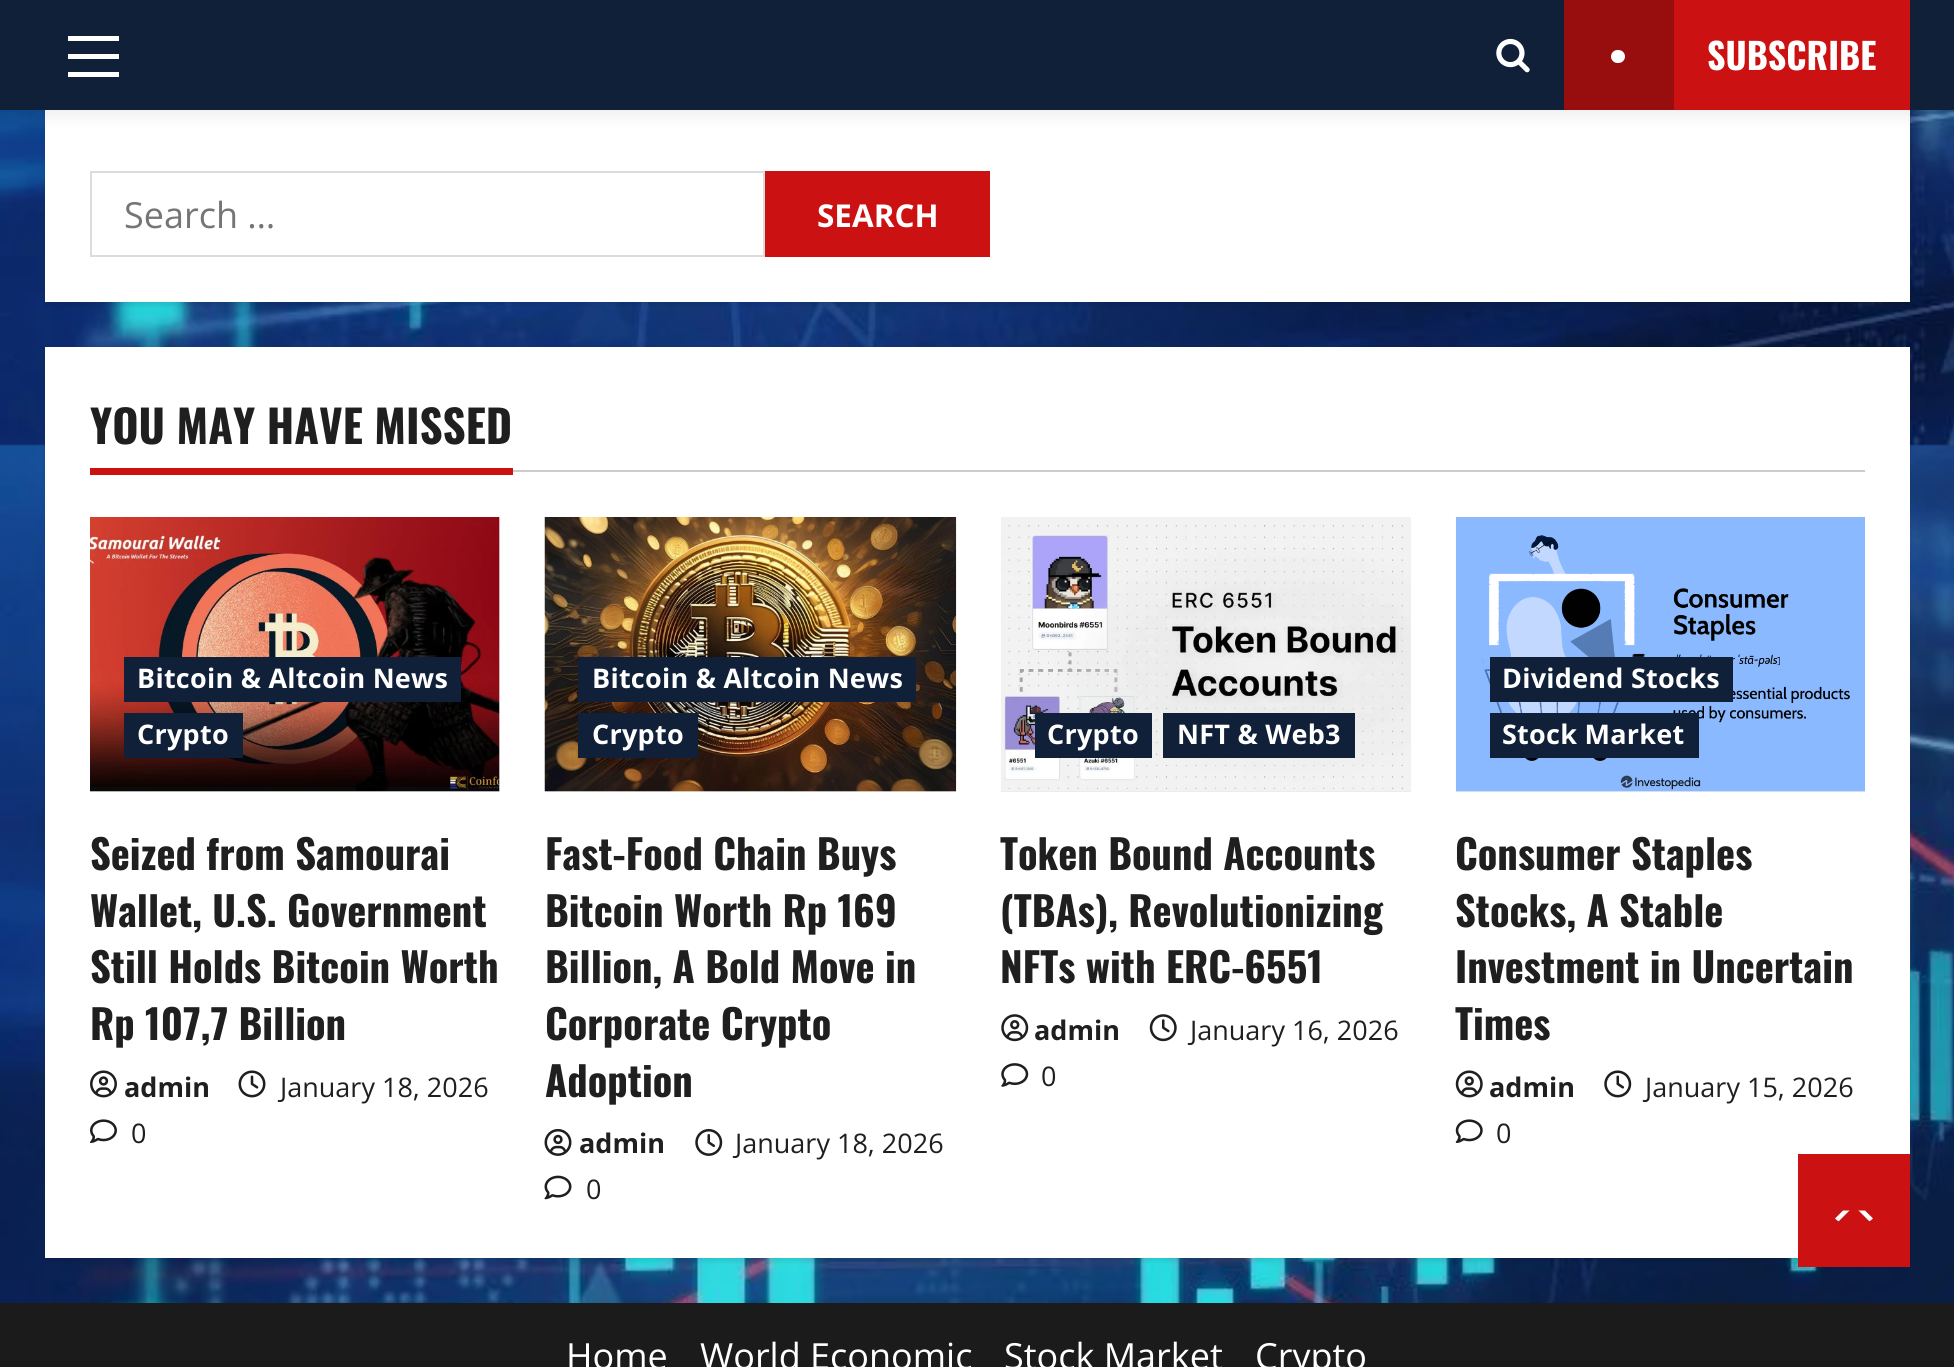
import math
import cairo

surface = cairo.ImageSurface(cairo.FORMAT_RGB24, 1954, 1367)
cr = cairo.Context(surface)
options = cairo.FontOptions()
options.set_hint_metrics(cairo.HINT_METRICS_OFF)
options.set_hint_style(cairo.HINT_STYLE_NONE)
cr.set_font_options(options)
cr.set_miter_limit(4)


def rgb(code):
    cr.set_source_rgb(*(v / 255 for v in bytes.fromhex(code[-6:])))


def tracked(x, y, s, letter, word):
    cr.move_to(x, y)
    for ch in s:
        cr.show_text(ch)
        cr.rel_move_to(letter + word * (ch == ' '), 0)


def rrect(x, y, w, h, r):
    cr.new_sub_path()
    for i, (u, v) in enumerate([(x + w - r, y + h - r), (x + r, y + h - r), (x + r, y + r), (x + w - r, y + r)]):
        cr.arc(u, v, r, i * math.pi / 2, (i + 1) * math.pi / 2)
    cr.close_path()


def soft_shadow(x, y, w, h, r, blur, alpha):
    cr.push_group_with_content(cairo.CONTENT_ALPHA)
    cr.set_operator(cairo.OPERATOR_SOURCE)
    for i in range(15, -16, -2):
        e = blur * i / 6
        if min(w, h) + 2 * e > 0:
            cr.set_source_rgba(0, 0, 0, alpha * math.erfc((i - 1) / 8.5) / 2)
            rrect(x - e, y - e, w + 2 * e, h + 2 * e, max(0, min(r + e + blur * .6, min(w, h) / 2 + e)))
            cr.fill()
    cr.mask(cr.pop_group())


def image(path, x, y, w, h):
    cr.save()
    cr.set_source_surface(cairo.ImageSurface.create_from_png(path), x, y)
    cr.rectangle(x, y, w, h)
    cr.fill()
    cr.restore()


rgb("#ffffff")
cr.paint()
image("img/1.png", 0, 110, 1954, 1193)
rgb("#000000")
soft_shadow(45, -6, 1865, 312, 0, 2, 0.08)
rgb("#ffffff")
cr.rectangle(45, 110, 1865, 192)
cr.fill()
rgb("#000000")
soft_shadow(0, 5, 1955, 110, 0, 9, 0.08)
for x, y, w, h, color in [
    (0, 0, 1954, 110, "#102039"),
    (68, 54, 51, 5, "#ffffff"),
    (68, 36, 51, 5, "#ffffff"),
    (68, 72, 51, 5, "#ffffff"),
]:
    rgb(color)
    cr.rectangle(x, y, w, h)
    cr.fill()
image("img/2.png", 1496, 38, 34, 35)
rgb("#cb1111")
cr.rectangle(1674, 0, 236, 110)
cr.fill()
rgb("#980d0d")
cr.rectangle(1564, 0, 110, 110)
cr.fill()
rgb("#ffffff")
rrect(1611, 50, 14, 13, 6.5)
cr.fill()
cr.rectangle(91, 172, 673, 84)
rgb("#dcdcdc")
cr.stroke()
rgb("#cb1111")
cr.rectangle(765, 171, 225, 86)
cr.fill()
rgb("#000000")
soft_shadow(45, 351, 1865, 911, 0, 2, 0.08)
for x, y, w, h, color in [
    (45, 347, 1865, 911, "#ffffff"),
    (513, 470, 1352, 2, "#cccccc"),
    (90, 468, 423, 7, "#cb1111"),
    (90, 518, 410, 274, "#ececec"),
]:
    rgb(color)
    cr.rectangle(x, y, w, h)
    cr.fill()
image("img/3.png", 90, 517, 410, 275)
rgb("#102039")
cr.rectangle(124, 657, 337, 45)
cr.fill()
cr.rectangle(124, 713, 119, 45)
cr.fill()
image("img/4.png", 90, 1070, 27, 28)
image("img/5.png", 238, 1070, 28, 28)
image("img/6.png", 90, 1119, 27, 24)
rgb("#ececec")
cr.rectangle(545, 791, 411, 1)
cr.fill()
image("img/7.png", 544, 517, 413, 275)
rgb("#102039")
cr.rectangle(578, 657, 338, 45)
cr.fill()
cr.rectangle(578, 713, 120, 45)
cr.fill()
image("img/8.png", 544, 1129, 28, 27)
image("img/9.png", 695, 1128, 28, 28)
image("img/10.png", 544, 1175, 28, 25)
rgb("#ececec")
cr.rectangle(1001, 518, 410, 274)
cr.fill()
image("img/11.png", 1001, 517, 410, 274)
rgb("#102039")
cr.rectangle(1035, 713, 117, 45)
cr.fill()
cr.rectangle(1163, 713, 192, 45)
cr.fill()
image("img/12.png", 1001, 1014, 28, 28)
image("img/13.png", 1149, 1014, 28, 28)
image("img/14.png", 1001, 1063, 28, 24)
rgb("#ececec")
cr.rectangle(1456, 791, 409, 1)
cr.fill()
image("img/15.png", 1455, 517, 411, 275)
rgb("#102039")
cr.rectangle(1490, 657, 243, 45)
cr.fill()
cr.rectangle(1490, 713, 209, 45)
cr.fill()
image("img/16.png", 1455, 1070, 28, 28)
image("img/17.png", 1604, 1070, 28, 28)
image("img/18.png", 1455, 1119, 28, 24)
rgb("#1b1b1b")
cr.rectangle(0, 1303, 1954, 64)
cr.fill()
rgb("#cb1111")
cr.rectangle(1798, 1154, 112, 113)
cr.fill()
rgb("#ffffff")
cr.new_path()
cr.move_to(1840.5, 1222)
cr.curve_to(1838.5, 1221.5, 1836.5, 1220, 1835, 1218.5)
cr.line_to(1843, 1210.5)
cr.line_to(1865, 1210.5)
cr.line_to(1873, 1218.5)
cr.curve_to(1871.5, 1220, 1869.5, 1221.5, 1867.5, 1222)
cr.close_path()
cr.fill()
rgb("#cb1111")
cr.new_path()
cr.move_to(1876, 1228)
cr.line_to(1832, 1228)
cr.line_to(1854, 1206)
cr.close_path()
cr.fill()
cr.select_font_face("Oswald", cairo.FONT_SLANT_NORMAL, cairo.FONT_WEIGHT_BOLD)
cr.set_font_size(36)
rgb("#ffffff")
cr.move_to(1707, 70)
cr.show_text("SUBSCRIBE")
cr.select_font_face("Open Sans")
rgb("#757575")
cr.move_to(124, 228)
cr.show_text("Search …")
cr.select_font_face("Open Sans", cairo.FONT_SLANT_NORMAL, cairo.FONT_WEIGHT_BOLD)
cr.set_font_size(31.5)
rgb("#ffffff")
cr.move_to(817, 227)
cr.show_text("SEARCH")
cr.select_font_face("Oswald", cairo.FONT_SLANT_NORMAL, cairo.FONT_WEIGHT_BOLD)
cr.set_font_size(45)
rgb("#1f1f1f")
cr.move_to(90, 444)
cr.show_text("YOU MAY HAVE MISSED")
cr.select_font_face("Open Sans", cairo.FONT_SLANT_NORMAL, cairo.FONT_WEIGHT_BOLD)
cr.set_font_size(27)
rgb("#ffffff")
tracked(137, 688, "Bitcoin & Altcoin News", 0.25, 0)
tracked(137, 744, "Crypto", 0.25, 0)
cr.select_font_face("Oswald", cairo.FONT_SLANT_NORMAL, cairo.FONT_WEIGHT_BOLD)
cr.set_font_size(40.5)
rgb("#1f1f1f")
for x, y, s in [
    (90, 870, "Seized from Samourai"),
    (90, 927, "Wallet, U.S. Government"),
    (90, 983, "Still Holds Bitcoin Worth"),
    (90, 1040, "Rp 107,7 Billion"),
]:
    cr.move_to(x, y)
    cr.show_text(s)
cr.select_font_face("Open Sans", cairo.FONT_SLANT_NORMAL, cairo.FONT_WEIGHT_BOLD)
cr.set_font_size(27)
cr.move_to(124, 1097)
cr.show_text("admin")
cr.select_font_face("Open Sans")
cr.move_to(280, 1097)
cr.show_text("January 18, 2026")
cr.move_to(131, 1143)
cr.show_text("0")
cr.select_font_face("Open Sans", cairo.FONT_SLANT_NORMAL, cairo.FONT_WEIGHT_BOLD)
rgb("#ffffff")
tracked(592, 688, "Bitcoin & Altcoin News", 0.25, 0)
tracked(592, 744, "Crypto", 0.25, 0)
cr.select_font_face("Oswald", cairo.FONT_SLANT_NORMAL, cairo.FONT_WEIGHT_BOLD)
cr.set_font_size(40.5)
rgb("#1f1f1f")
for x, y, s in [
    (545, 870, "Fast-Food Chain Buys"),
    (545, 927, "Bitcoin Worth Rp 169"),
    (545, 983, "Billion, A Bold Move in"),
    (545, 1040, "Corporate Crypto"),
    (545, 1097, "Adoption"),
]:
    cr.move_to(x, y)
    cr.show_text(s)
cr.select_font_face("Open Sans", cairo.FONT_SLANT_NORMAL, cairo.FONT_WEIGHT_BOLD)
cr.set_font_size(27)
cr.move_to(579, 1153)
cr.show_text("admin")
cr.select_font_face("Open Sans")
cr.move_to(735, 1153)
cr.show_text("January 18, 2026")
cr.move_to(586, 1199)
cr.show_text("0")
cr.select_font_face("Open Sans", cairo.FONT_SLANT_NORMAL, cairo.FONT_WEIGHT_BOLD)
rgb("#ffffff")
tracked(1047, 744, "Crypto", 0.25, 0)
tracked(1177, 744, "NFT & Web3", 0.25, 0)
cr.select_font_face("Oswald", cairo.FONT_SLANT_NORMAL, cairo.FONT_WEIGHT_BOLD)
cr.set_font_size(40.5)
rgb("#1f1f1f")
for x, y, s in [
    (1000, 870, "Token Bound Accounts"),
    (1000, 927, "(TBAs), Revolutionizing"),
    (1000, 983, "NFTs with ERC-6551"),
]:
    cr.move_to(x, y)
    cr.show_text(s)
cr.select_font_face("Open Sans", cairo.FONT_SLANT_NORMAL, cairo.FONT_WEIGHT_BOLD)
cr.set_font_size(27)
cr.move_to(1034, 1040)
cr.show_text("admin")
cr.select_font_face("Open Sans")
cr.move_to(1190, 1040)
cr.show_text("January 16, 2026")
cr.move_to(1041, 1086)
cr.show_text("0")
cr.select_font_face("Open Sans", cairo.FONT_SLANT_NORMAL, cairo.FONT_WEIGHT_BOLD)
rgb("#ffffff")
tracked(1502, 688, "Dividend Stocks", 0.25, 0)
tracked(1502, 744, "Stock Market", 0.25, 0)
cr.select_font_face("Oswald", cairo.FONT_SLANT_NORMAL, cairo.FONT_WEIGHT_BOLD)
cr.set_font_size(40.5)
rgb("#1f1f1f")
for x, y, s in [
    (1455, 870, "Consumer Staples"),
    (1455, 927, "Stocks, A Stable"),
    (1455, 983, "Investment in Uncertain"),
    (1455, 1040, "Times"),
]:
    cr.move_to(x, y)
    cr.show_text(s)
cr.select_font_face("Open Sans", cairo.FONT_SLANT_NORMAL, cairo.FONT_WEIGHT_BOLD)
cr.set_font_size(27)
cr.move_to(1489, 1097)
cr.show_text("admin")
cr.select_font_face("Open Sans")
cr.move_to(1645, 1097)
cr.show_text("January 15, 2026")
cr.move_to(1496, 1143)
cr.show_text("0")
cr.set_font_size(36)
rgb("#ffffff")
for x, y, s in [
    (566, 1369, "Home"),
    (700, 1369, "World Economic"),
    (1004, 1369, "Stock Market"),
    (1255, 1369, "Crypto"),
]:
    cr.move_to(x, y)
    cr.show_text(s)
surface.write_to_png("page.png")
